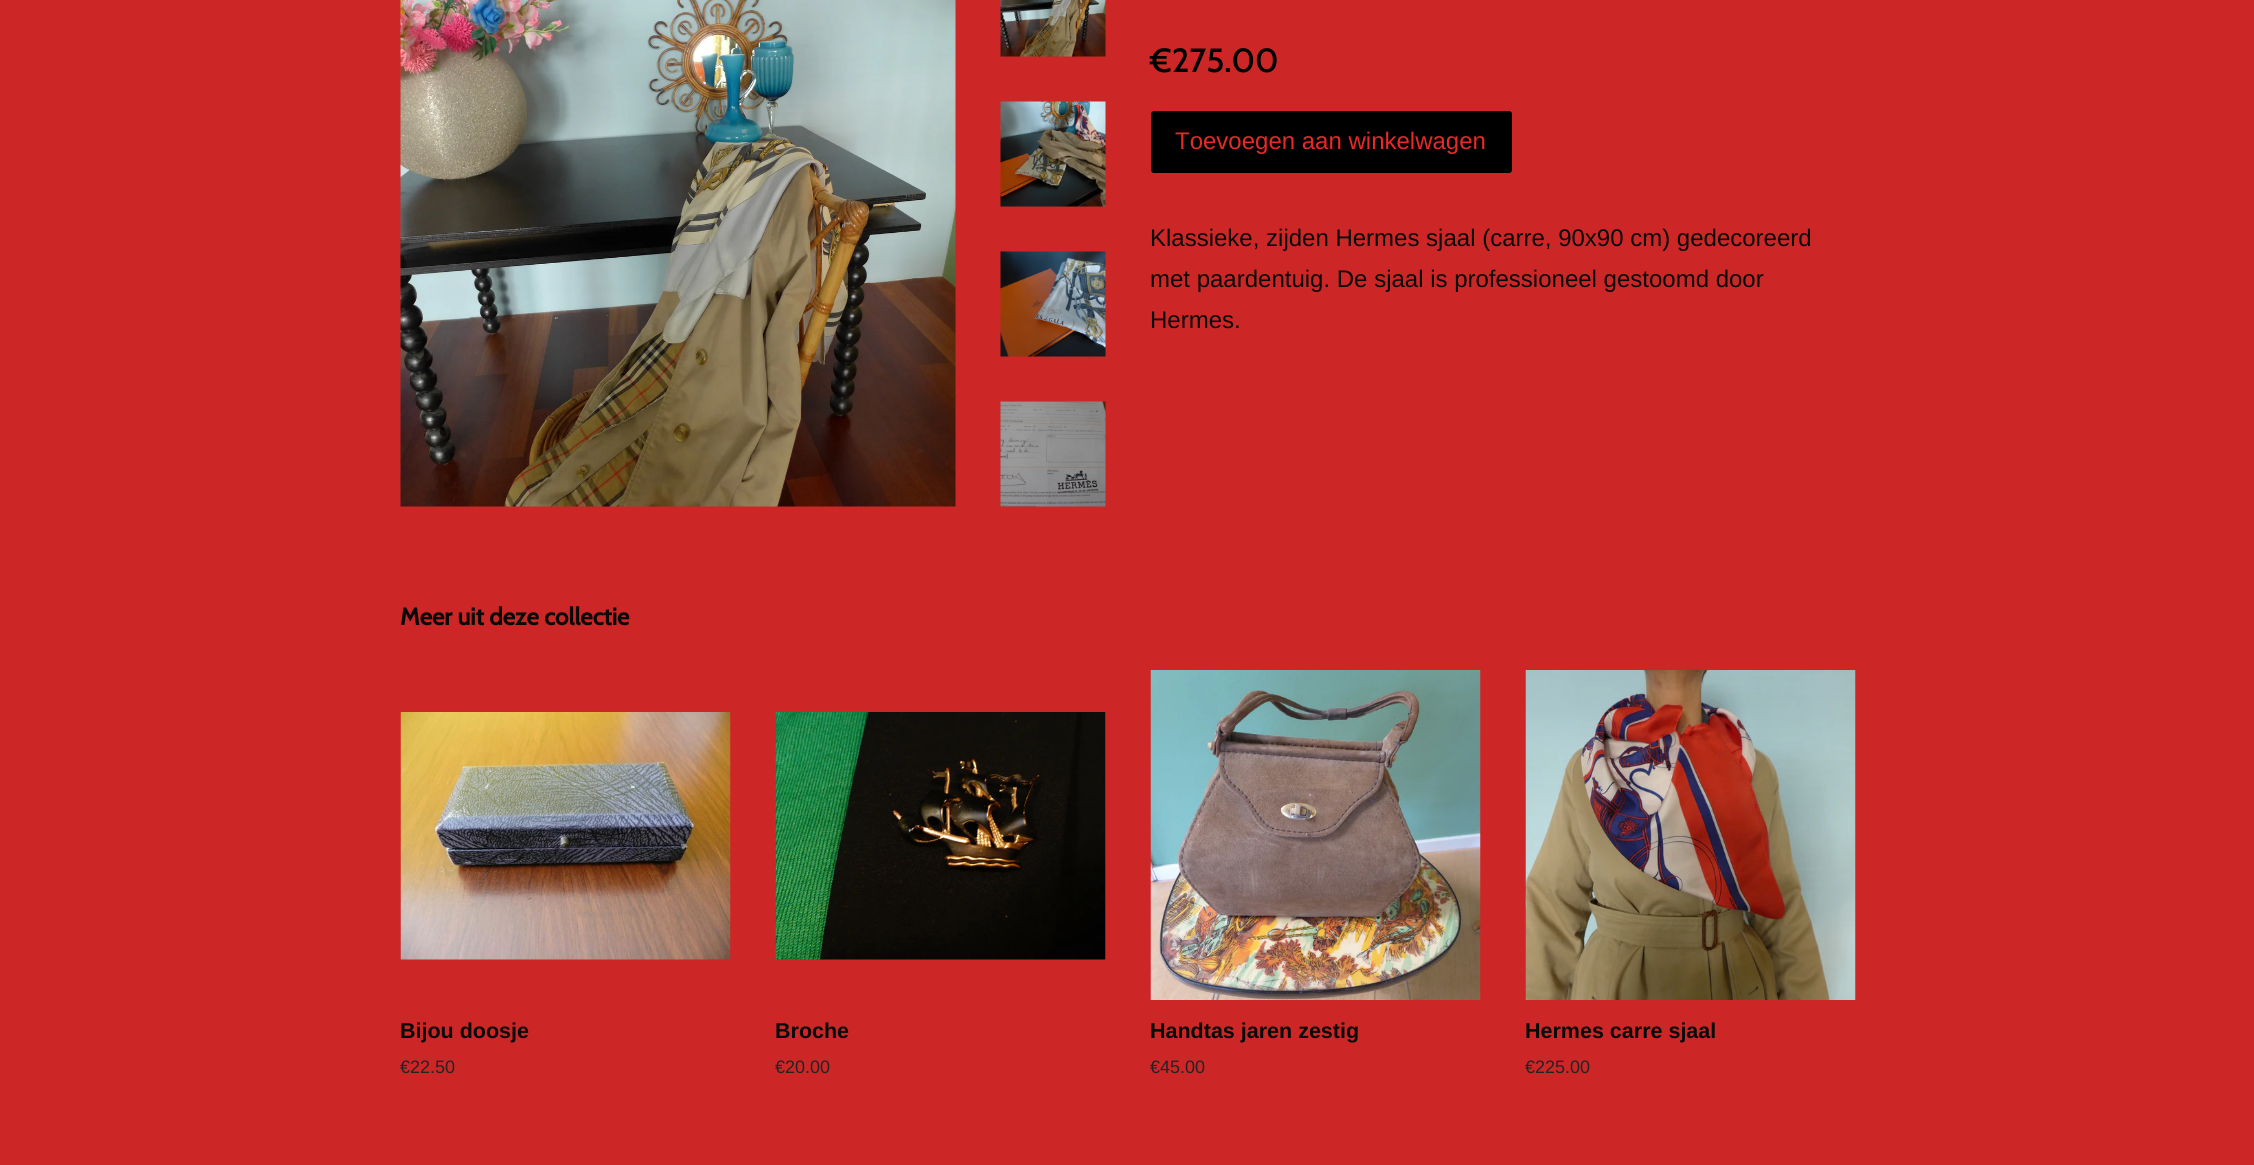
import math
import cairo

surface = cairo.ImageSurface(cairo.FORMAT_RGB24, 2254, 1165)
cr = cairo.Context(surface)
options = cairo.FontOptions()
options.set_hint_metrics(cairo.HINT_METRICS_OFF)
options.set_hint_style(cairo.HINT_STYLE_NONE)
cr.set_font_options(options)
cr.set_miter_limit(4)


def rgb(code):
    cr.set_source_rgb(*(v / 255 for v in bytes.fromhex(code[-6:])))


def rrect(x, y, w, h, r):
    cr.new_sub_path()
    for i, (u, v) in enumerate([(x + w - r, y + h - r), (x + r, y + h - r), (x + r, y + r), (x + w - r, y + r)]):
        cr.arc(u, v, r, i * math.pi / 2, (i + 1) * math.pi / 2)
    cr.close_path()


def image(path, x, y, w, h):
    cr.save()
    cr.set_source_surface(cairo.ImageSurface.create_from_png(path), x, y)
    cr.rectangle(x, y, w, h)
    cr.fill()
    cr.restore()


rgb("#cd2626")
cr.paint()
image("img/1.png", 400, 0, 556, 507)
image("img/2.png", 1000, 0, 106, 57)
image("img/3.png", 1000, 101, 106, 106)
image("img/4.png", 1000, 251, 106, 106)
image("img/5.png", 1000, 401, 106, 106)
rgb("#000000")
rrect(1151, 111, 361, 62, 3)
cr.fill()
image("img/6.png", 400, 712, 331, 248)
image("img/7.png", 775, 712, 331, 248)
image("img/8.png", 1150, 670, 331, 330)
image("img/9.png", 1525, 670, 331, 330)
cr.select_font_face("Cabin Medium")
cr.set_font_size(33.5)
cr.move_to(1150, 72)
cr.show_text("€275.00")
cr.select_font_face("Liberation Sans")
cr.set_font_size(24)
rgb("#e82929")
cr.move_to(1175, 149)
cr.show_text("Toevoegen aan winkelwagen")
rgb("#090909")
for x, y, s in [
    (1150, 246, "Klassieke, zijden Hermes sjaal (carre, 90x90 cm) gedecoreerd"),
    (1150, 287, "met paardentuig. De sjaal is professioneel gestoomd door"),
    (1150, 328, "Hermes."),
]:
    cr.move_to(x, y)
    cr.show_text(s)
cr.select_font_face("Cabin", cairo.FONT_SLANT_NORMAL, cairo.FONT_WEIGHT_BOLD)
cr.move_to(400, 625)
cr.show_text("Meer uit deze collectie")
cr.select_font_face("Liberation Sans", cairo.FONT_SLANT_NORMAL, cairo.FONT_WEIGHT_BOLD)
cr.set_font_size(21.5)
cr.move_to(400, 1038)
cr.show_text("Bijou doosje")
cr.select_font_face("Liberation Sans")
cr.set_font_size(18)
rgb("#232323")
cr.move_to(400, 1073)
cr.show_text("€22.50")
cr.select_font_face("Liberation Sans", cairo.FONT_SLANT_NORMAL, cairo.FONT_WEIGHT_BOLD)
cr.set_font_size(21.5)
rgb("#090909")
cr.move_to(775, 1038)
cr.show_text("Broche")
cr.select_font_face("Liberation Sans")
cr.set_font_size(18)
rgb("#232323")
cr.move_to(775, 1073)
cr.show_text("€20.00")
cr.select_font_face("Liberation Sans", cairo.FONT_SLANT_NORMAL, cairo.FONT_WEIGHT_BOLD)
cr.set_font_size(21.5)
rgb("#090909")
cr.move_to(1150, 1038)
cr.show_text("Handtas jaren zestig")
cr.select_font_face("Liberation Sans")
cr.set_font_size(18)
rgb("#232323")
cr.move_to(1150, 1073)
cr.show_text("€45.00")
cr.select_font_face("Liberation Sans", cairo.FONT_SLANT_NORMAL, cairo.FONT_WEIGHT_BOLD)
cr.set_font_size(21.5)
rgb("#090909")
cr.move_to(1525, 1038)
cr.show_text("Hermes carre sjaal")
cr.select_font_face("Liberation Sans")
cr.set_font_size(18)
rgb("#232323")
cr.move_to(1525, 1073)
cr.show_text("€225.00")
surface.write_to_png("page.png")
